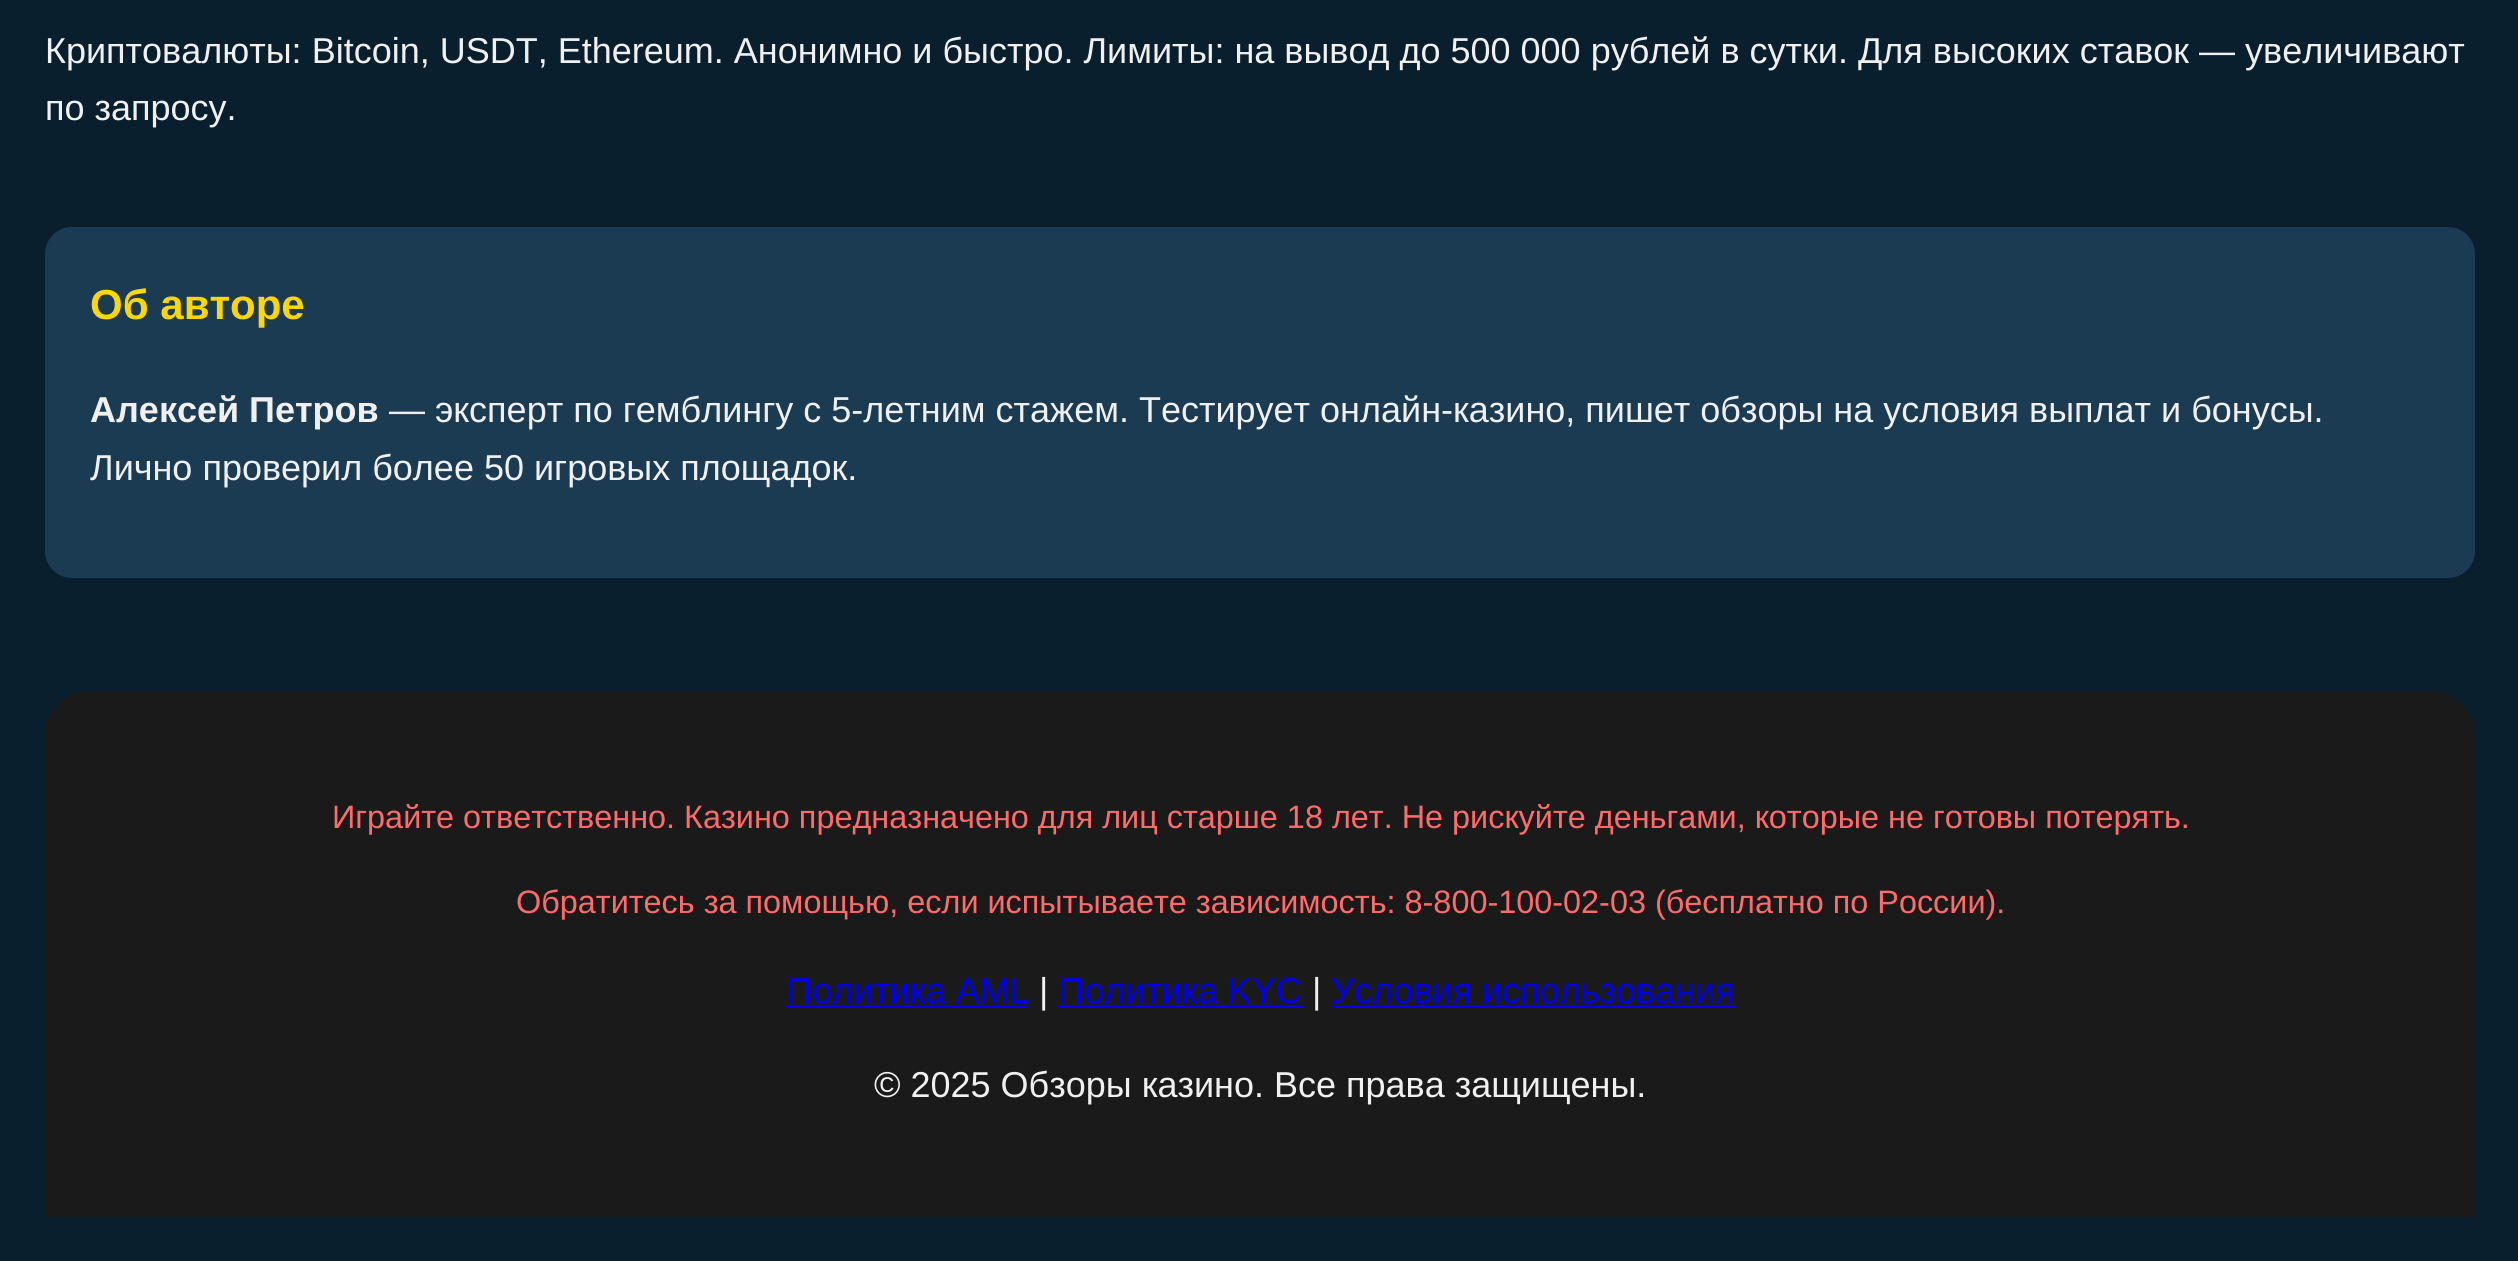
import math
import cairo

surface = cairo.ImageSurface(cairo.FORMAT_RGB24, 2518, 1261)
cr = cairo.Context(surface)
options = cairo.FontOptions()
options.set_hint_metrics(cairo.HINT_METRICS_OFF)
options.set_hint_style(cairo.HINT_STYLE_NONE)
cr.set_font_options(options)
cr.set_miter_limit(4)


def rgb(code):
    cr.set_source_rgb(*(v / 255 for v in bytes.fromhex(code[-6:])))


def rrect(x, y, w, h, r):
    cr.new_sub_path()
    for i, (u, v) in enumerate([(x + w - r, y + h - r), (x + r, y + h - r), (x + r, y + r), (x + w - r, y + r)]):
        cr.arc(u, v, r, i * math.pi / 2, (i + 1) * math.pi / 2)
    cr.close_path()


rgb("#0a1f2e")
cr.paint()
rgb("#1a3b52")
rrect(45, 227, 2430, 351, 27)
cr.fill()
rgb("#1a1a1a")
cr.new_path()
cr.move_to(90, 691)
cr.line_to(2430, 691)
cr.curve_to(2455, 691, 2475, 711, 2475, 736)
cr.line_to(2475, 1217)
cr.line_to(45, 1217)
cr.line_to(45, 736)
cr.curve_to(45, 711, 65, 691, 90, 691)
cr.close_path()
cr.fill()
for x, y, w, h, color in [
    (785, 1006, 243, 2, "#0000ee"),
    (1058, 1006, 245, 2, "#0000ee"),
    (1332, 1006, 403, 2, "#0000ee"),
]:
    rgb(color)
    cr.rectangle(x, y, w, h)
    cr.fill()
cr.select_font_face("Liberation Sans")
cr.set_font_size(36)
rgb("#f0f0f0")
cr.move_to(45, 63)
cr.show_text("Криптовалюты: Bitcoin, USDT, Ethereum. Анонимно и быстро. Лимиты: на вывод до 500 000 рублей в сутки. Для высоких ставок — увеличивают")
cr.move_to(45, 120)
cr.show_text("по запросу.")
cr.select_font_face("Liberation Sans", cairo.FONT_SLANT_NORMAL, cairo.FONT_WEIGHT_BOLD)
cr.set_font_size(42)
rgb("#ffd700")
cr.move_to(90, 319)
cr.show_text("Об авторе")
cr.set_font_size(36)
rgb("#f0f0f0")
cr.move_to(90, 422)
cr.show_text("Алексей Петров")
cr.select_font_face("Liberation Sans")
cr.move_to(389, 422)
cr.show_text("— эксперт по гемблингу с 5-летним стажем. Тестирует онлайн-казино, пишет обзоры на условия выплат и бонусы.")
cr.move_to(90, 480)
cr.show_text("Лично проверил более 50 игровых площадок.")
cr.set_font_size(32.4)
rgb("#ff6b6b")
cr.move_to(332, 828)
cr.show_text("Играйте ответственно. Казино предназначено для лиц старше 18 лет. Не рискуйте деньгами, которые не готовы потерять.")
cr.move_to(516, 913)
cr.show_text("Обратитесь за помощью, если испытываете зависимость: 8-800-100-02-03 (бесплатно по России).")
cr.set_font_size(36)
rgb("#0000ee")
cr.move_to(786, 1003)
cr.show_text("Политика AML")
rgb("#f0f0f0")
cr.move_to(1039, 1003)
cr.show_text("|")
rgb("#0000ee")
cr.move_to(1058, 1003)
cr.show_text("Политика KYC")
rgb("#f0f0f0")
cr.move_to(1312, 1003)
cr.show_text("|")
rgb("#0000ee")
cr.move_to(1331, 1003)
cr.show_text("Условия использования")
rgb("#f0f0f0")
cr.move_to(874, 1097)
cr.show_text("© 2025 Обзоры казино. Все права защищены.")
surface.write_to_png("page.png")
